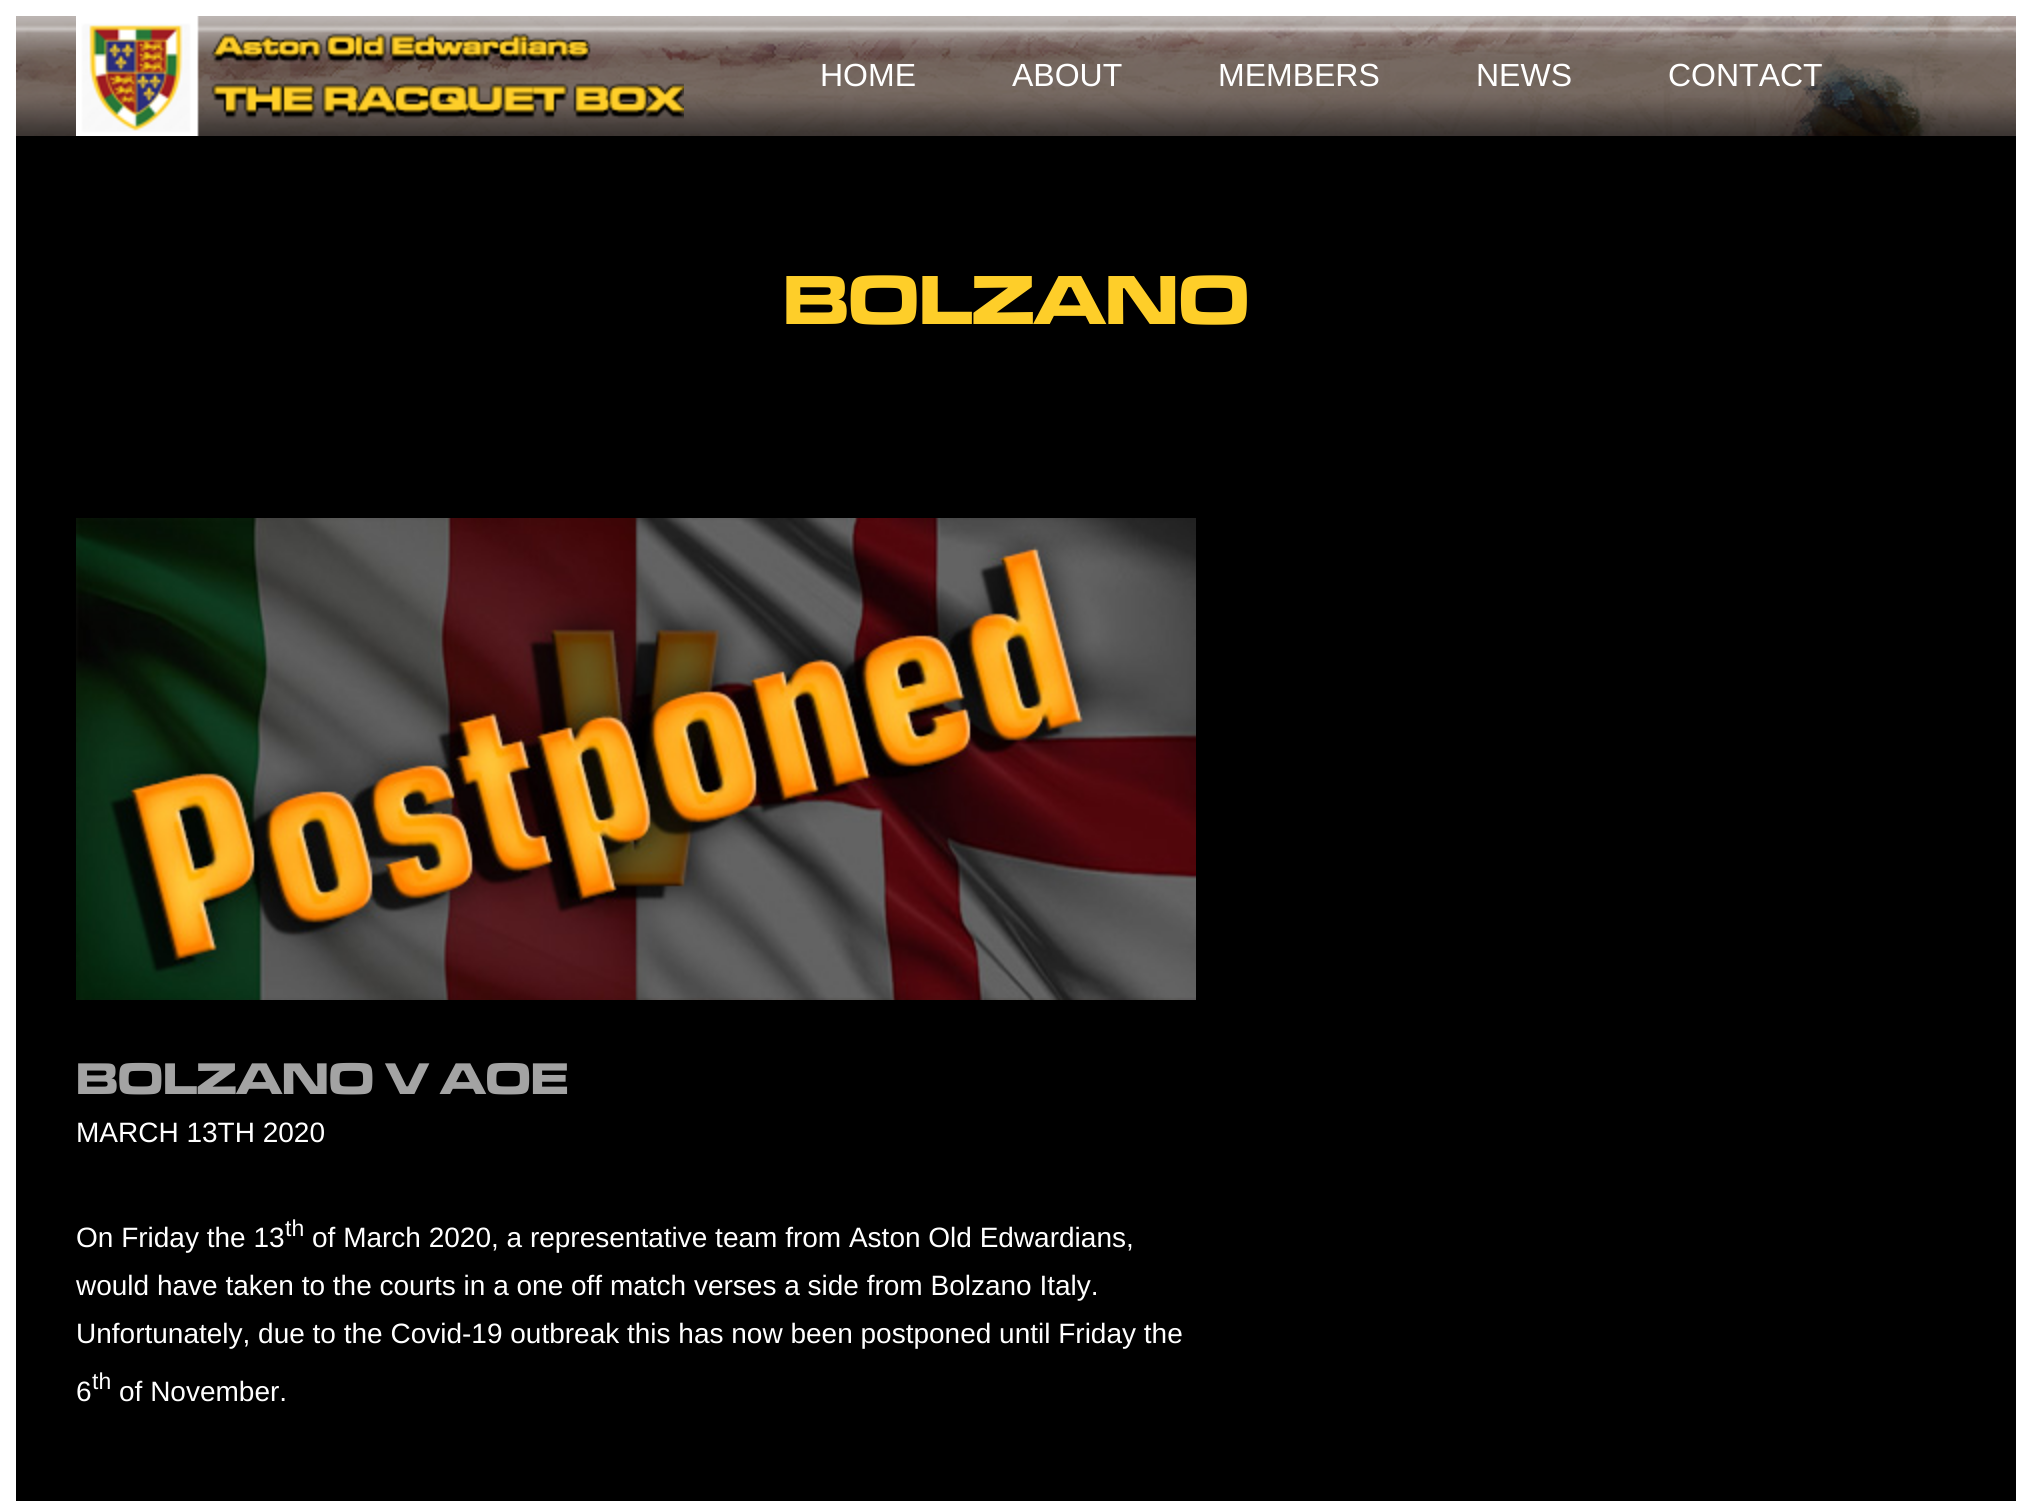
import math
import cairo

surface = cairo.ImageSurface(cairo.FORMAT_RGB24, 2032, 1501)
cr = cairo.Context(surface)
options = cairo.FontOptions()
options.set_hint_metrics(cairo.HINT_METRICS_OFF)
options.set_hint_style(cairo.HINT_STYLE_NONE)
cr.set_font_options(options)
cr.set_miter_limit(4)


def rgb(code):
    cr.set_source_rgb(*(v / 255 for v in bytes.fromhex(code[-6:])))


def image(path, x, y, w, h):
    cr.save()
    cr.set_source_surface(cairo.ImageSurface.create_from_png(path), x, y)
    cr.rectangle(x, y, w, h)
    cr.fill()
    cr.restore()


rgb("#ffffff")
cr.paint()
image("img/1.png", 16, 16, 2000, 120)
image("img/2.png", 16, 16, 2000, 120)
image("img/3.png", 76, 16, 608, 120)
rgb("#000000")
cr.rectangle(16, 136, 2000, 1365)
cr.fill()
image("img/4.png", 76, 518, 1120, 482)
cr.select_font_face("Liberation Sans")
cr.set_font_size(32)
rgb("#ffffff")
for x, y, s in [
    (820, 86, "HOME"),
    (1012, 86, "ABOUT"),
    (1218, 86, "MEMBERS"),
    (1476, 86, "NEWS"),
    (1668, 86, "CONTACT"),
]:
    cr.move_to(x, y)
    cr.show_text(s)
cr.select_font_face("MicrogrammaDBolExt", cairo.FONT_SLANT_NORMAL, cairo.FONT_WEIGHT_BOLD)
cr.set_font_size(72)
rgb("#fece29")
cr.move_to(783, 324)
cr.show_text("BOLZANO")
cr.set_font_size(46)
rgb("#a3a3a3")
cr.move_to(76, 1094)
cr.show_text("BOLZANO V AOE")
cr.select_font_face("Liberation Sans")
cr.set_font_size(28)
rgb("#ffffff")
cr.move_to(76, 1142)
cr.show_text("MARCH 13TH 2020")
cr.move_to(76, 1247)
cr.show_text("On Friday the 13")
cr.set_font_size(23)
cr.move_to(285, 1236)
cr.show_text("th")
cr.set_font_size(28)
for x, y, s in [
    (312, 1247, "of March 2020, a representative team from Aston Old Edwardians,"),
    (76, 1295, "would have taken to the courts in a one off match verses a side from Bolzano Italy."),
    (76, 1343, "Unfortunately, due to the Covid-19 outbreak this has now been postponed until Friday the"),
    (76, 1401, "6"),
]:
    cr.move_to(x, y)
    cr.show_text(s)
cr.set_font_size(23)
cr.move_to(92, 1389)
cr.show_text("th")
cr.set_font_size(28)
cr.move_to(119, 1401)
cr.show_text("of November.")
surface.write_to_png("page.png")
